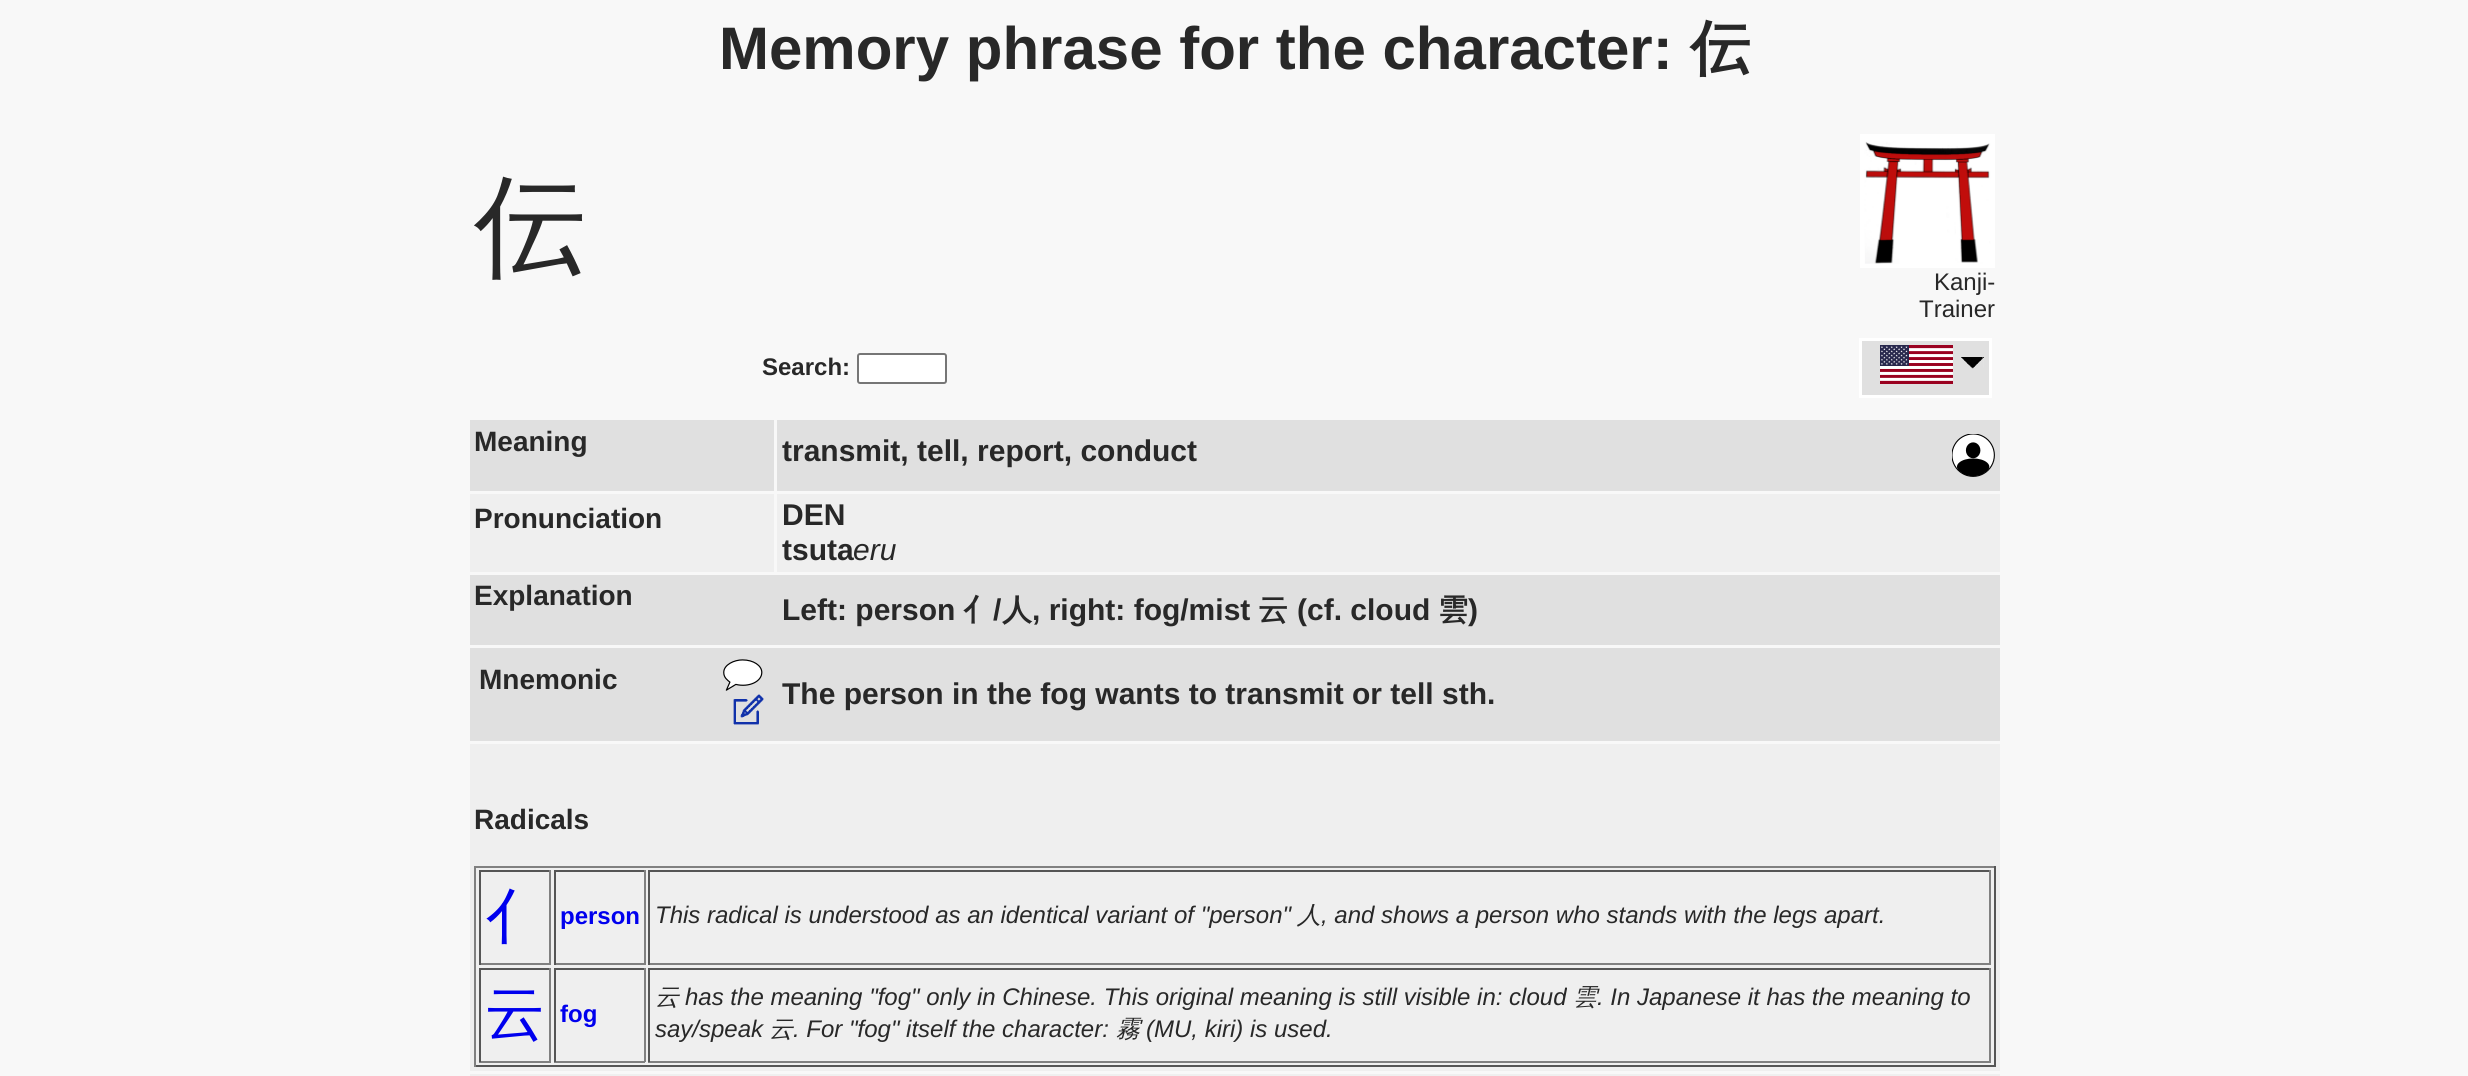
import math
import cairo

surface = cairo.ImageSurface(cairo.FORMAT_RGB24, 2468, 1076)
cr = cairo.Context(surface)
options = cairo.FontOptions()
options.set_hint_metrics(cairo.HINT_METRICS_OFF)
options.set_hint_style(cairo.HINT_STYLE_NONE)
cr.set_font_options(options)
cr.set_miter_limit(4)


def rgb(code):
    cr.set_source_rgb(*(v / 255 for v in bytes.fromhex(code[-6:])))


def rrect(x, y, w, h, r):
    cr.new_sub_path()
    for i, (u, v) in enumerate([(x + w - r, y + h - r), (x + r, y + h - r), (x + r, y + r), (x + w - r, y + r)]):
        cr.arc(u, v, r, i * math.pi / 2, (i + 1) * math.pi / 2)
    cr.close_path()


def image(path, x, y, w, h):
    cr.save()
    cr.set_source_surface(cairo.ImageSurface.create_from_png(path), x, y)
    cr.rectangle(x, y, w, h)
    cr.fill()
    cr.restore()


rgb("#f8f8f8")
cr.paint()
image("img/1.png", 1860, 134, 135, 134)
rgb("#ffffff")
rrect(858, 354, 88, 29, 2)
cr.fill_preserve()
rgb("#767676")
cr.stroke()
rgb("#ffffff")
cr.rectangle(1859, 338, 133, 60)
cr.fill()
rgb("#e0e0e0")
cr.rectangle(1862, 341, 127, 54)
cr.fill()
image("img/2.png", 1880, 345, 73, 39)
image("img/3.png", 1961, 357, 23, 12)
cr.rectangle(470, 420, 304, 71)
cr.fill()
cr.rectangle(777, 420, 1223, 71)
cr.fill()
image("img/4.png", 1952, 434, 43, 43)
for x, y, w, h, color in [
    (470, 494, 304, 78, "#efefef"),
    (777, 494, 1223, 78, "#efefef"),
    (470, 575, 1530, 70, "#e0e0e0"),
    (470, 648, 1530, 93, "#e0e0e0"),
]:
    rgb(color)
    cr.rectangle(x, y, w, h)
    cr.fill()
image("img/5.png", 723, 659, 40, 32)
image("img/6.png", 733, 694, 31, 31)
for x, y, w, h, color in [
    (470, 744, 1530, 327, "#efefef"),
    (474, 866, 1521, 2, "#808080"),
    (1994, 866, 2, 201, "#555555"),
    (474, 1065, 1521, 2, "#555555"),
    (474, 866, 2, 201, "#808080"),
    (479, 870, 72, 2, "#555555"),
    (549, 870, 2, 95, "#808080"),
    (479, 963, 72, 2, "#808080"),
    (479, 870, 2, 95, "#555555"),
    (554, 870, 91, 2, "#555555"),
    (644, 870, 2, 95, "#808080"),
    (554, 963, 91, 2, "#808080"),
    (554, 870, 2, 95, "#555555"),
    (648, 870, 1343, 2, "#555555"),
    (1989, 870, 2, 95, "#808080"),
    (648, 963, 1343, 2, "#808080"),
    (648, 870, 2, 95, "#555555"),
    (479, 968, 72, 2, "#555555"),
    (549, 968, 2, 94, "#808080"),
    (479, 1061, 72, 2, "#808080"),
    (479, 968, 2, 94, "#555555"),
    (554, 968, 91, 2, "#555555"),
    (644, 968, 2, 94, "#808080"),
    (554, 1061, 91, 2, "#808080"),
    (554, 968, 2, 94, "#555555"),
    (648, 968, 1343, 2, "#555555"),
    (1989, 968, 2, 94, "#808080"),
    (648, 1061, 1343, 2, "#808080"),
    (648, 968, 2, 94, "#555555"),
    (470, 1074, 1530, 2, "#efefef"),
]:
    rgb(color)
    cr.rectangle(x, y, w, h)
    cr.fill()
cr.select_font_face("Liberation Sans", cairo.FONT_SLANT_NORMAL, cairo.FONT_WEIGHT_BOLD)
cr.set_font_size(60)
rgb("#282828")
cr.move_to(719, 69)
cr.show_text("Memory phrase for the character:")
cr.select_font_face("WenQuanYi Zen Hei", cairo.FONT_SLANT_NORMAL, cairo.FONT_WEIGHT_BOLD)
cr.move_to(1690, 69)
cr.show_text("伝")
cr.select_font_face("WenQuanYi Zen Hei Medium")
cr.set_font_size(112)
cr.move_to(474, 265)
cr.show_text("伝")
cr.select_font_face("Liberation Sans")
cr.set_font_size(24)
cr.move_to(1934, 290)
cr.show_text("Kanji-")
cr.move_to(1919, 317)
cr.show_text("Trainer")
cr.select_font_face("Liberation Sans", cairo.FONT_SLANT_NORMAL, cairo.FONT_WEIGHT_BOLD)
cr.move_to(762, 375)
cr.show_text("Search:")
cr.set_font_size(28)
cr.move_to(474, 451)
cr.show_text("Meaning")
cr.set_font_size(30)
cr.move_to(782, 461)
cr.show_text("transmit, tell, report, conduct")
cr.set_font_size(28)
cr.move_to(474, 528)
cr.show_text("Pronunciation")
cr.set_font_size(30)
cr.move_to(782, 525)
cr.show_text("DEN")
cr.move_to(782, 560)
cr.show_text("tsuta")
cr.select_font_face("Liberation Sans", cairo.FONT_SLANT_ITALIC)
cr.move_to(853, 560)
cr.show_text("eru")
cr.select_font_face("Liberation Sans", cairo.FONT_SLANT_NORMAL, cairo.FONT_WEIGHT_BOLD)
cr.set_font_size(28)
cr.move_to(474, 605)
cr.show_text("Explanation")
cr.set_font_size(30)
cr.move_to(782, 620)
cr.show_text("Left: person")
cr.select_font_face("WenQuanYi Zen Hei", cairo.FONT_SLANT_NORMAL, cairo.FONT_WEIGHT_BOLD)
cr.move_to(963, 620)
cr.show_text("亻")
cr.select_font_face("Liberation Sans", cairo.FONT_SLANT_NORMAL, cairo.FONT_WEIGHT_BOLD)
cr.move_to(993, 620)
cr.show_text("/")
cr.select_font_face("WenQuanYi Zen Hei", cairo.FONT_SLANT_NORMAL, cairo.FONT_WEIGHT_BOLD)
cr.move_to(1002, 620)
cr.show_text("人")
cr.select_font_face("Liberation Sans", cairo.FONT_SLANT_NORMAL, cairo.FONT_WEIGHT_BOLD)
cr.move_to(1032, 620)
cr.show_text(", right: fog/mist")
cr.select_font_face("WenQuanYi Zen Hei", cairo.FONT_SLANT_NORMAL, cairo.FONT_WEIGHT_BOLD)
cr.move_to(1258, 620)
cr.show_text("云")
cr.select_font_face("Liberation Sans", cairo.FONT_SLANT_NORMAL, cairo.FONT_WEIGHT_BOLD)
cr.move_to(1297, 620)
cr.show_text("(cf. cloud")
cr.select_font_face("WenQuanYi Zen Hei", cairo.FONT_SLANT_NORMAL, cairo.FONT_WEIGHT_BOLD)
cr.move_to(1438, 620)
cr.show_text("雲")
cr.select_font_face("Liberation Sans", cairo.FONT_SLANT_NORMAL, cairo.FONT_WEIGHT_BOLD)
cr.move_to(1468, 620)
cr.show_text(")")
cr.set_font_size(28)
cr.move_to(479, 689)
cr.show_text("Mnemonic")
cr.set_font_size(30)
cr.move_to(782, 704)
cr.show_text("The person in the fog wants to transmit or tell sth.")
cr.set_font_size(28)
cr.move_to(474, 829)
cr.show_text("Radicals")
cr.select_font_face("WenQuanYi Zen Hei Medium")
cr.set_font_size(60)
rgb("#0000ee")
cr.move_to(485, 937)
cr.show_text("亻")
cr.select_font_face("Liberation Sans", cairo.FONT_SLANT_NORMAL, cairo.FONT_WEIGHT_BOLD)
cr.set_font_size(24)
cr.move_to(560, 924)
cr.show_text("person")
cr.select_font_face("Liberation Sans", cairo.FONT_SLANT_ITALIC)
rgb("#282828")
cr.move_to(655, 923)
cr.show_text("This radical is understood as an identical variant of \"person\"")
cr.select_font_face("WenQuanYi Zen Hei Medium", cairo.FONT_SLANT_ITALIC)
cr.move_to(1297, 923)
cr.show_text("人")
cr.select_font_face("Liberation Sans", cairo.FONT_SLANT_ITALIC)
cr.move_to(1321, 923)
cr.show_text(", and shows a person who stands with the legs apart.")
cr.select_font_face("WenQuanYi Zen Hei Medium")
cr.set_font_size(60)
rgb("#0000ee")
cr.move_to(485, 1034)
cr.show_text("云")
cr.select_font_face("Liberation Sans", cairo.FONT_SLANT_NORMAL, cairo.FONT_WEIGHT_BOLD)
cr.set_font_size(24)
cr.move_to(560, 1022)
cr.show_text("fog")
cr.select_font_face("WenQuanYi Zen Hei Medium", cairo.FONT_SLANT_ITALIC)
rgb("#282828")
cr.move_to(655, 1005)
cr.show_text("云")
cr.select_font_face("Liberation Sans", cairo.FONT_SLANT_ITALIC)
cr.move_to(685, 1005)
cr.show_text("has the meaning \"fog\" only in Chinese. This original meaning is still visible in: cloud")
cr.select_font_face("WenQuanYi Zen Hei Medium", cairo.FONT_SLANT_ITALIC)
cr.move_to(1573, 1005)
cr.show_text("雲")
cr.select_font_face("Liberation Sans", cairo.FONT_SLANT_ITALIC)
cr.move_to(1597, 1005)
cr.show_text(". In Japanese it has the meaning to")
cr.move_to(655, 1037)
cr.show_text("say/speak")
cr.select_font_face("WenQuanYi Zen Hei Medium", cairo.FONT_SLANT_ITALIC)
cr.move_to(769, 1037)
cr.show_text("云")
cr.select_font_face("Liberation Sans", cairo.FONT_SLANT_ITALIC)
cr.move_to(793, 1037)
cr.show_text(". For \"fog\" itself the character:")
cr.select_font_face("WenQuanYi Zen Hei Medium", cairo.FONT_SLANT_ITALIC)
cr.move_to(1116, 1037)
cr.show_text("霧")
cr.select_font_face("Liberation Sans", cairo.FONT_SLANT_ITALIC)
cr.move_to(1146, 1037)
cr.show_text("(MU, kiri) is used.")
surface.write_to_png("page.png")
